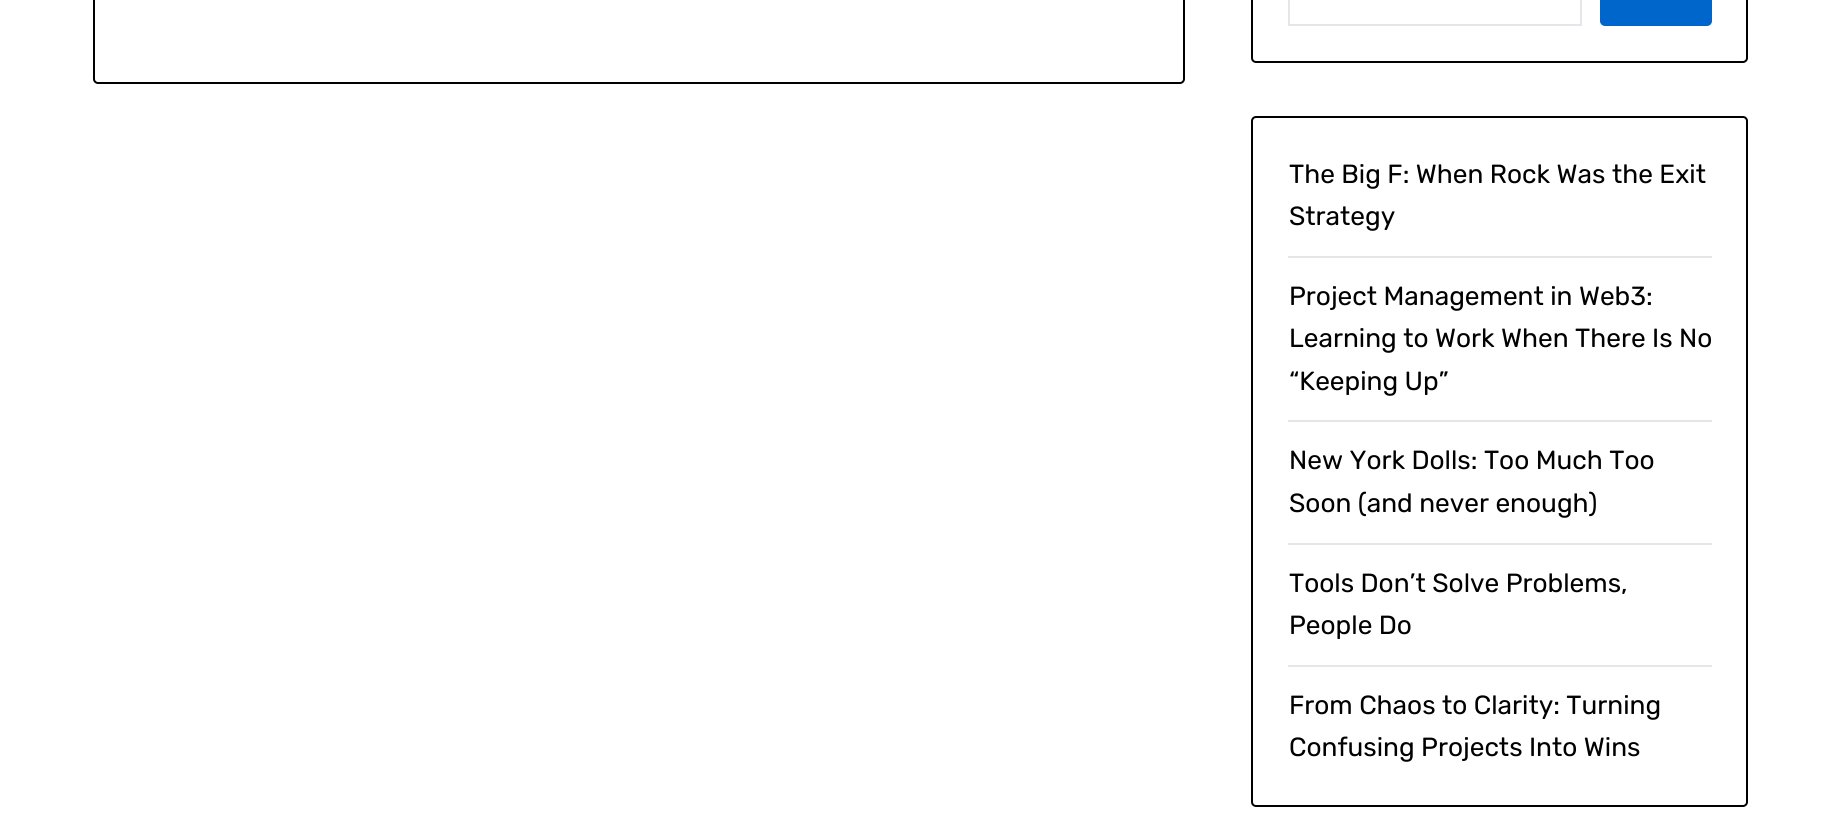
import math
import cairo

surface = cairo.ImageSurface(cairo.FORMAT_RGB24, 1841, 833)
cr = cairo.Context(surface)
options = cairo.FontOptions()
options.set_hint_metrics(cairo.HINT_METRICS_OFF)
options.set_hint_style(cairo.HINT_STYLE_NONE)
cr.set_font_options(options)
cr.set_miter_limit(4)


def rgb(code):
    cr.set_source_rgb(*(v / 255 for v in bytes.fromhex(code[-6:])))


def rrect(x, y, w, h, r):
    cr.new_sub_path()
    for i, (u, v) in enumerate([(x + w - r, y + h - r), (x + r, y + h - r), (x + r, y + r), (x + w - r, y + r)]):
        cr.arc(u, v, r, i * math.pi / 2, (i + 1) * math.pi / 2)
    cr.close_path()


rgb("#ffffff")
cr.paint()
rrect(94, -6, 1090, 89, 4)
rgb("#000000")
cr.stroke()
rrect(1252, -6, 495, 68, 4)
cr.stroke()
cr.rectangle(1289, -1, 292, 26)
rgb("#e5e6e9")
cr.stroke()
rgb("#0066cc")
rrect(1600, -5, 112, 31, 5)
cr.fill()
rrect(1252, 117, 495, 689, 4)
rgb("#000000")
cr.stroke()
for x, y, w, h, color in [
    (1288, 256, 424, 2, "#e6e6e6"),
    (1288, 420, 424, 2, "#e6e6e6"),
    (1288, 543, 424, 2, "#e6e6e6"),
    (1288, 665, 424, 2, "#e6e6e6"),
]:
    rgb(color)
    cr.rectangle(x, y, w, h)
    cr.fill()
cr.select_font_face("Rubik")
cr.set_font_size(26.25)
rgb("#000000")
for x, y, s in [
    (1289, 183, "The Big F: When Rock Was the Exit"),
    (1289, 225, "Strategy"),
    (1289, 305, "Project Management in Web3:"),
    (1289, 347, "Learning to Work When There Is No"),
    (1289, 390, "“Keeping Up”"),
    (1289, 469, "New York Dolls: Too Much Too"),
    (1289, 512, "Soon (and never enough)"),
    (1289, 592, "Tools Don’t Solve Problems,"),
    (1289, 634, "People Do"),
    (1289, 714, "From Chaos to Clarity: Turning"),
    (1289, 756, "Confusing Projects Into Wins"),
]:
    cr.move_to(x, y)
    cr.show_text(s)
surface.write_to_png("page.png")
